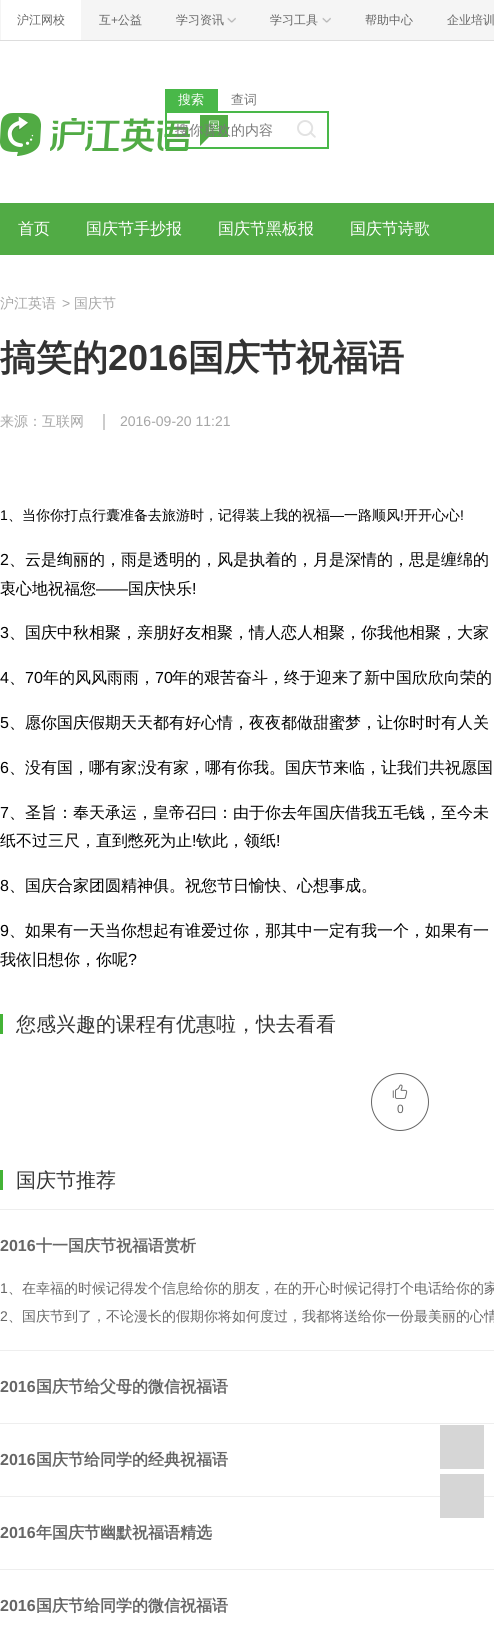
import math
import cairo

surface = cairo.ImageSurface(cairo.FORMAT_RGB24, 494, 1631)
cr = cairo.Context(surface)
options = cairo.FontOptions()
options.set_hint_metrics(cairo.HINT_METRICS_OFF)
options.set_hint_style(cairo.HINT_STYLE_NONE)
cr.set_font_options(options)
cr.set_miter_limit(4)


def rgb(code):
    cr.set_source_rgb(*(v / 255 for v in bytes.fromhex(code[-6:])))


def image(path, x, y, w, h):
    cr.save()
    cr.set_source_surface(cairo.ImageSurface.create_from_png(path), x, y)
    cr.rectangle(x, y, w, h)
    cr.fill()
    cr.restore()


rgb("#ffffff")
cr.paint()
for x, y, w, h, color in [
    (81, 0, 413, 40, "#f5f5f5"),
    (0, 40, 494, 1, "#dddddd"),
    (0, 0, 1, 40, "#f5f5f5"),
]:
    rgb(color)
    cr.rectangle(x, y, w, h)
    cr.fill()
image("img/1.png", 227, 17, 9, 6)
image("img/1.png", 322, 17, 9, 6)
rgb("#49b849")
cr.rectangle(165, 89, 53, 22)
cr.fill()
image("img/3.png", 0, 113, 190, 43)
rgb("#51ab45")
cr.rectangle(200, 115, 28, 22)
cr.fill()
cr.new_path()
cr.move_to(200, 136)
cr.line_to(210, 136)
cr.line_to(200, 146)
cr.close_path()
cr.fill()
cr.rectangle(166, 112, 162, 36)
rgb("#49b849")
cr.stroke()
image("img/2.png", 297, 120, 19, 18)
for x, y, w, h, color in [
    (0, 203, 494, 52, "#51ab45"),
    (103, 414, 2, 16, "#cccccc"),
    (0, 1014, 3, 20, "#44b336"),
]:
    rgb(color)
    cr.rectangle(x, y, w, h)
    cr.fill()
cr.arc(400, 1102, 28.5, 0, 2 * math.pi)
rgb("#666666")
cr.set_line_width(1)
cr.stroke()
image("img/4.png", 392, 1084, 16, 15)
for x, y, w, h, color in [
    (0, 1170, 3, 20, "#44b336"),
    (0, 1209, 494, 1, "#eeeeee"),
    (0, 1350, 494, 1, "#eeeeee"),
    (0, 1423, 494, 1, "#eeeeee"),
    (0, 1496, 494, 1, "#eeeeee"),
    (0, 1569, 494, 1, "#eeeeee"),
    (440, 1425, 44, 44, "#d6d6d6"),
    (440, 1474, 44, 44, "#d6d6d6"),
]:
    rgb(color)
    cr.rectangle(x, y, w, h)
    cr.fill()
cr.select_font_face("WenQuanYi Zen Hei Medium")
cr.set_font_size(12)
rgb("#666666")
cr.move_to(17, 24)
cr.show_text("沪江网校")
cr.move_to(99, 24)
cr.show_text("互")
cr.select_font_face("Liberation Sans")
cr.move_to(111, 24)
cr.show_text("+")
cr.select_font_face("WenQuanYi Zen Hei Medium")
for x, y, s in [
    (118, 24, "公益"),
    (176, 24, "学习资讯"),
    (270, 24, "学习工具"),
    (365, 24, "帮助中心"),
    (447, 24, "企业培训"),
]:
    cr.move_to(x, y)
    cr.show_text(s)
cr.set_font_size(13)
rgb("#ffffff")
cr.move_to(178, 104)
cr.show_text("搜索")
rgb("#797979")
cr.move_to(231, 104)
cr.show_text("查词")
cr.set_font_size(12)
rgb("#ffffff")
cr.move_to(208, 130)
cr.show_text("国")
cr.set_font_size(14)
rgb("#797979")
cr.move_to(175, 135)
cr.show_text("搜你喜欢的内容")
cr.set_font_size(16)
rgb("#ffffff")
for x, y, s in [
    (18, 234, "首页"),
    (86, 234, "国庆节手抄报"),
    (218, 234, "国庆节黑板报"),
    (350, 234, "国庆节诗歌"),
]:
    cr.move_to(x, y)
    cr.show_text(s)
cr.set_font_size(14)
rgb("#a6a6a6")
cr.move_to(0, 308)
cr.show_text("沪江英语")
cr.select_font_face("Liberation Sans")
cr.move_to(62, 308)
cr.show_text(">")
cr.select_font_face("WenQuanYi Zen Hei Medium")
cr.move_to(74, 308)
cr.show_text("国庆节")
cr.select_font_face("WenQuanYi Zen Hei", cairo.FONT_SLANT_NORMAL, cairo.FONT_WEIGHT_BOLD)
cr.set_font_size(36)
rgb("#333333")
cr.move_to(0, 370)
cr.show_text("搞笑的")
cr.select_font_face("Liberation Sans", cairo.FONT_SLANT_NORMAL, cairo.FONT_WEIGHT_BOLD)
cr.move_to(108, 370)
cr.show_text("2016")
cr.select_font_face("WenQuanYi Zen Hei", cairo.FONT_SLANT_NORMAL, cairo.FONT_WEIGHT_BOLD)
cr.move_to(188, 370)
cr.show_text("国庆节祝福语")
cr.select_font_face("WenQuanYi Zen Hei Medium")
cr.set_font_size(14)
rgb("#a6a6a6")
cr.move_to(0, 426)
cr.show_text("来源：互联网")
cr.select_font_face("Liberation Sans")
cr.move_to(120, 426)
cr.show_text("2016-09-20 11:21")
rgb("#000000")
cr.move_to(0, 520)
cr.show_text("1")
cr.select_font_face("WenQuanYi Zen Hei Medium")
cr.move_to(8, 520)
cr.show_text("、当你你打点行囊准备去旅游时，记得装上我的祝福")
cr.select_font_face("Liberation Sans")
cr.move_to(330, 520)
cr.show_text("—")
cr.select_font_face("WenQuanYi Zen Hei Medium")
cr.move_to(344, 520)
cr.show_text("一路顺风")
cr.select_font_face("Liberation Sans")
cr.move_to(400, 520)
cr.show_text("!")
cr.select_font_face("WenQuanYi Zen Hei Medium")
cr.move_to(404, 520)
cr.show_text("开开心心")
cr.select_font_face("Liberation Sans")
cr.move_to(460, 520)
cr.show_text("!")
cr.set_font_size(16)
cr.move_to(0, 565)
cr.show_text("2")
cr.select_font_face("WenQuanYi Zen Hei Medium")
cr.move_to(9, 565)
cr.show_text("、云是绚丽的，雨是透明的，风是执着的，月是深情的，思是缠绵的")
cr.move_to(0, 594)
cr.show_text("衷心地祝福您")
cr.select_font_face("Liberation Sans")
cr.move_to(96, 594)
cr.show_text("——")
cr.select_font_face("WenQuanYi Zen Hei Medium")
cr.move_to(128, 594)
cr.show_text("国庆快乐")
cr.select_font_face("Liberation Sans")
cr.move_to(192, 594)
cr.show_text("!")
cr.move_to(0, 638)
cr.show_text("3")
cr.select_font_face("WenQuanYi Zen Hei Medium")
cr.move_to(9, 638)
cr.show_text("、国庆中秋相聚，亲朋好友相聚，情人恋人相聚，你我他相聚，大家")
cr.select_font_face("Liberation Sans")
cr.move_to(0, 683)
cr.show_text("4")
cr.select_font_face("WenQuanYi Zen Hei Medium")
cr.move_to(9, 683)
cr.show_text("、")
cr.select_font_face("Liberation Sans")
cr.move_to(25, 683)
cr.show_text("70")
cr.select_font_face("WenQuanYi Zen Hei Medium")
cr.move_to(43, 683)
cr.show_text("年的风风雨雨，")
cr.select_font_face("Liberation Sans")
cr.move_to(155, 683)
cr.show_text("70")
cr.select_font_face("WenQuanYi Zen Hei Medium")
cr.move_to(172, 683)
cr.show_text("年的艰苦奋斗，终于迎来了新中国欣欣向荣的")
cr.select_font_face("Liberation Sans")
cr.move_to(0, 728)
cr.show_text("5")
cr.select_font_face("WenQuanYi Zen Hei Medium")
cr.move_to(9, 728)
cr.show_text("、愿你国庆假期天天都有好心情，夜夜都做甜蜜梦，让你时时有人关")
cr.select_font_face("Liberation Sans")
cr.move_to(0, 773)
cr.show_text("6")
cr.select_font_face("WenQuanYi Zen Hei Medium")
cr.move_to(9, 773)
cr.show_text("、没有国，哪有家")
cr.select_font_face("Liberation Sans")
cr.move_to(137, 773)
cr.show_text(";")
cr.select_font_face("WenQuanYi Zen Hei Medium")
cr.move_to(141, 773)
cr.show_text("没有家，哪有你我。国庆节来临，让我们共祝愿国")
cr.select_font_face("Liberation Sans")
cr.move_to(0, 818)
cr.show_text("7")
cr.select_font_face("WenQuanYi Zen Hei Medium")
cr.move_to(9, 818)
cr.show_text("、圣旨：奉天承运，皇帝召曰：由于你去年国庆借我五毛钱，至今未")
cr.move_to(0, 846)
cr.show_text("纸不过三尺，直到憋死为止")
cr.select_font_face("Liberation Sans")
cr.move_to(192, 846)
cr.show_text("!")
cr.select_font_face("WenQuanYi Zen Hei Medium")
cr.move_to(196, 846)
cr.show_text("钦此，领纸")
cr.select_font_face("Liberation Sans")
cr.move_to(276, 846)
cr.show_text("!")
cr.move_to(0, 891)
cr.show_text("8")
cr.select_font_face("WenQuanYi Zen Hei Medium")
cr.move_to(9, 891)
cr.show_text("、国庆合家团圆精神俱。祝您节日愉快、心想事成。")
cr.select_font_face("Liberation Sans")
cr.move_to(0, 936)
cr.show_text("9")
cr.select_font_face("WenQuanYi Zen Hei Medium")
cr.move_to(9, 936)
cr.show_text("、如果有一天当你想起有谁爱过你，那其中一定有我一个，如果有一")
cr.move_to(0, 965)
cr.show_text("我依旧想你，你呢")
cr.select_font_face("Liberation Sans")
cr.move_to(128, 965)
cr.show_text("?")
cr.select_font_face("WenQuanYi Zen Hei Medium")
cr.set_font_size(20)
rgb("#333333")
cr.move_to(16, 1031)
cr.show_text("您感兴趣的课程有优惠啦，快去看看")
cr.select_font_face("Liberation Sans")
cr.set_font_size(12)
rgb("#666666")
cr.move_to(397, 1113)
cr.show_text("0")
cr.select_font_face("WenQuanYi Zen Hei Medium")
cr.set_font_size(20)
rgb("#333333")
cr.move_to(16, 1187)
cr.show_text("国庆节推荐")
cr.select_font_face("Liberation Sans", cairo.FONT_SLANT_NORMAL, cairo.FONT_WEIGHT_BOLD)
cr.set_font_size(16)
rgb("#666666")
cr.move_to(0, 1251)
cr.show_text("2016")
cr.select_font_face("WenQuanYi Zen Hei", cairo.FONT_SLANT_NORMAL, cairo.FONT_WEIGHT_BOLD)
cr.move_to(36, 1251)
cr.show_text("十一国庆节祝福语赏析")
cr.select_font_face("Liberation Sans")
cr.set_font_size(14)
cr.move_to(0, 1293)
cr.show_text("1")
cr.select_font_face("WenQuanYi Zen Hei Medium")
cr.move_to(8, 1293)
cr.show_text("、在幸福的时候记得发个信息给你的朋友，在的开心时候记得打个电话给你的家")
cr.select_font_face("Liberation Sans")
cr.move_to(0, 1321)
cr.show_text("2")
cr.select_font_face("WenQuanYi Zen Hei Medium")
cr.move_to(8, 1321)
cr.show_text("、国庆节到了，不论漫长的假期你将如何度过，我都将送给你一份最美丽的心情")
cr.select_font_face("Liberation Sans", cairo.FONT_SLANT_NORMAL, cairo.FONT_WEIGHT_BOLD)
cr.set_font_size(16)
cr.move_to(0, 1392)
cr.show_text("2016")
cr.select_font_face("WenQuanYi Zen Hei", cairo.FONT_SLANT_NORMAL, cairo.FONT_WEIGHT_BOLD)
cr.move_to(36, 1392)
cr.show_text("国庆节给父母的微信祝福语")
cr.select_font_face("Liberation Sans", cairo.FONT_SLANT_NORMAL, cairo.FONT_WEIGHT_BOLD)
cr.move_to(0, 1465)
cr.show_text("2016")
cr.select_font_face("WenQuanYi Zen Hei", cairo.FONT_SLANT_NORMAL, cairo.FONT_WEIGHT_BOLD)
cr.move_to(36, 1465)
cr.show_text("国庆节给同学的经典祝福语")
cr.select_font_face("Liberation Sans", cairo.FONT_SLANT_NORMAL, cairo.FONT_WEIGHT_BOLD)
cr.move_to(0, 1538)
cr.show_text("2016")
cr.select_font_face("WenQuanYi Zen Hei", cairo.FONT_SLANT_NORMAL, cairo.FONT_WEIGHT_BOLD)
cr.move_to(36, 1538)
cr.show_text("年国庆节幽默祝福语精选")
cr.select_font_face("Liberation Sans", cairo.FONT_SLANT_NORMAL, cairo.FONT_WEIGHT_BOLD)
cr.move_to(0, 1611)
cr.show_text("2016")
cr.select_font_face("WenQuanYi Zen Hei", cairo.FONT_SLANT_NORMAL, cairo.FONT_WEIGHT_BOLD)
cr.move_to(36, 1611)
cr.show_text("国庆节给同学的微信祝福语")
surface.write_to_png("page.png")
